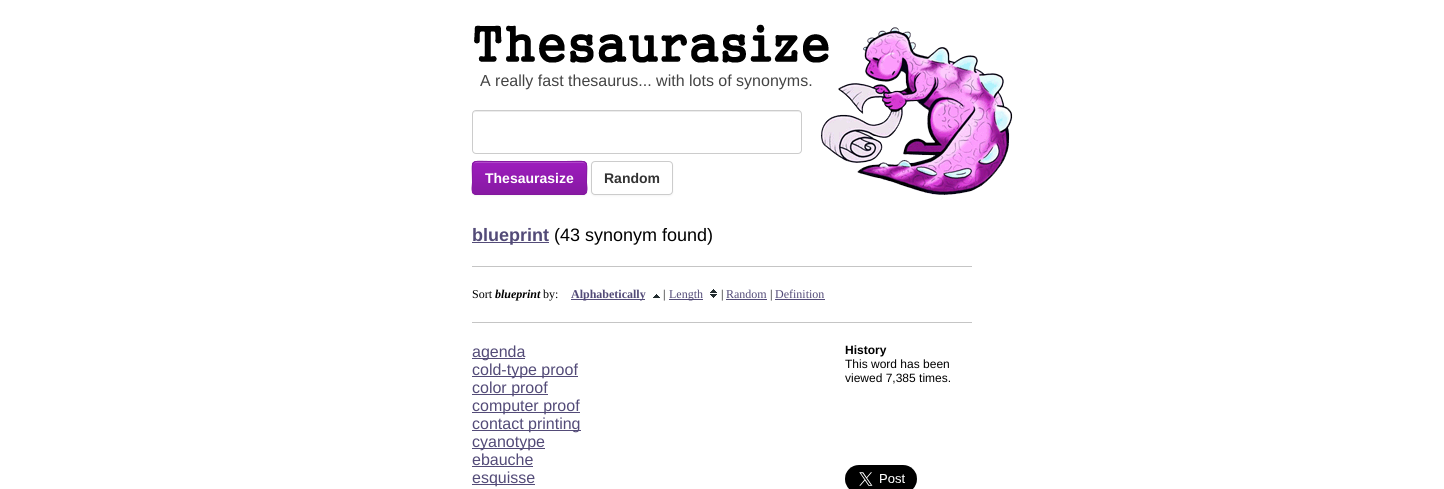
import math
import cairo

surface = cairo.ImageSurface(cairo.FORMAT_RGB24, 1444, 489)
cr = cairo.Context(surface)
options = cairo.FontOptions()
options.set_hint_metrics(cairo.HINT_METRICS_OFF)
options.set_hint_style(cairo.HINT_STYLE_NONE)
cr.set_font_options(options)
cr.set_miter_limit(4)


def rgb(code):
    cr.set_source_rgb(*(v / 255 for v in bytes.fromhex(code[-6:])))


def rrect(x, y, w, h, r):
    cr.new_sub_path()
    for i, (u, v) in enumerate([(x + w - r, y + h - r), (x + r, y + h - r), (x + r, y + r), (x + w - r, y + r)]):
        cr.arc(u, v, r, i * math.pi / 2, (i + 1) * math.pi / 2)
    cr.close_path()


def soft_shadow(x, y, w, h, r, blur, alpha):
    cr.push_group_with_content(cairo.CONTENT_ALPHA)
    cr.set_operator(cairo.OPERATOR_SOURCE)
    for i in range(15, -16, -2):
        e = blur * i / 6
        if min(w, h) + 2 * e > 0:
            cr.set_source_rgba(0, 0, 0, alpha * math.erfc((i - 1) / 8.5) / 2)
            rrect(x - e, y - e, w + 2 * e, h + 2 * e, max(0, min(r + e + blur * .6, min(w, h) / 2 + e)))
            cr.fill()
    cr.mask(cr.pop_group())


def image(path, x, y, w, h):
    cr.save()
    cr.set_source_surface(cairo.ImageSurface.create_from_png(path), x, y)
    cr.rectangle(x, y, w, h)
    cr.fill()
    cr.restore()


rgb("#ffffff")
cr.paint()
image("img/1.png", 821, 27, 192, 168)
image("img/2.png", 474, 24, 355, 39)
rgb("#ececec")
cr.new_path()
cr.move_to(476, 112)
cr.line_to(798, 112)
cr.curve_to(800, 112, 801, 113, 801, 115)
cr.curve_to(801, 113, 800, 111, 798, 111)
cr.line_to(476, 111)
cr.curve_to(474, 111, 473, 113, 473, 115)
cr.curve_to(473, 113, 474, 112, 476, 112)
cr.close_path()
cr.fill()
rrect(472.5, 110.5, 329, 43, 3.5)
rgb("#cccccc")
cr.set_line_width(1)
cr.stroke()
rgb("#000000")
soft_shadow(472, 162, 115, 34, 4, 1, 0.05)
rgb("#8819a3")
rrect(472, 161, 115, 34, 4)
cr.fill()
cr.save()
rrect(472, 161, 115, 34, 4)
cr.clip()
gradient = cairo.LinearGradient(530, 162, 530, 194)
gradient.add_color_stop_rgba(0, 0.616, 0.114, 0.741, 1)
gradient.add_color_stop_rgba(1, 0.529, 0.098, 0.639, 1)
cr.set_source(gradient)
cr.rectangle(472, 162, 115, 32)
cr.fill()
cr.restore()
cr.set_source_rgba(1, 1, 1, 0.2)
cr.new_path()
cr.move_to(476, 163)
cr.line_to(583, 163)
cr.curve_to(585, 163, 586, 164, 586, 166)
cr.curve_to(586, 164, 585, 162, 583, 162)
cr.line_to(494, 162)
cr.curve_to(492, 162, 473, 157, 473, 166)
cr.curve_to(473, 164, 474, 163, 476, 163)
cr.close_path()
cr.fill()
cr.new_path()
cr.move_to(585.5, 193.5)
cr.line_to(583.5, 194.5)
cr.line_to(494, 194.5)
cr.line_to(476, 194.5)
cr.line_to(473.5, 193.5)
rgb("#82189d")
cr.stroke()
cr.new_path()
cr.move_to(473.5, 193.5)
cr.curve_to(471, 191, 472.5, 185, 472.5, 182.5)
cr.curve_to(472.5, 157.5, 468, 161.5, 494, 161.5)
cr.line_to(565, 161.5)
cr.curve_to(591, 161.5, 586.5, 157.5, 586.5, 182.5)
cr.curve_to(586.5, 185, 588, 191, 585.5, 193.5)
rgb("#8719a3")
cr.stroke()
rgb("#000000")
soft_shadow(591, 162, 82, 34, 4, 1, 0.05)
rgb("#ffffff")
rrect(591.5, 161.5, 81, 33, 3.5)
cr.fill_preserve()
rgb("#cccccc")
cr.stroke()
for x, y, w, h, color in [
    (472, 242, 77, 1, "#534b78"),
    (472, 266, 500, 1, "#c5c5c5"),
    (571, 299, 74, 1, "#534b78"),
]:
    rgb(color)
    cr.rectangle(x, y, w, h)
    cr.fill()
image("img/3.png", 653, 294, 7, 4)
cr.rectangle(669, 299, 34, 1)
cr.fill()
image("img/4.png", 710, 289, 7, 9)
for x, y, w, h, color in [
    (726, 299, 41, 1, "#534b78"),
    (775, 299, 50, 1, "#534b78"),
    (472, 322, 500, 1, "#c5c5c5"),
    (472, 358, 53, 1, "#534b78"),
    (472, 376, 106, 1, "#534b78"),
    (472, 394, 76, 1, "#534b78"),
    (472, 412, 108, 1, "#534b78"),
    (472, 430, 109, 1, "#534b78"),
    (472, 448, 73, 1, "#534b78"),
    (472, 466, 61, 1, "#534b78"),
    (472, 484, 63, 1, "#534b78"),
]:
    rgb(color)
    cr.rectangle(x, y, w, h)
    cr.fill()
image("img/5.png", 845, 465, 72, 24)
cr.select_font_face("Liberation Sans")
cr.set_font_size(16)
rgb("#444444")
cr.move_to(480, 86)
cr.show_text("A really fast thesaurus... with lots of synonyms.")
cr.select_font_face("Liberation Sans", cairo.FONT_SLANT_NORMAL, cairo.FONT_WEIGHT_BOLD)
cr.set_font_size(14)
rgb("#ffffff")
cr.move_to(485, 183)
cr.show_text("Thesaurasize")
rgb("#333333")
cr.move_to(604, 183)
cr.show_text("Random")
cr.set_font_size(18)
rgb("#534b78")
cr.move_to(472, 241)
cr.show_text("blueprint")
cr.select_font_face("Liberation Sans")
rgb("#000000")
cr.move_to(554, 241)
cr.show_text("(43 synonym found)")
cr.select_font_face("Liberation Serif")
cr.set_font_size(12)
cr.move_to(472, 298)
cr.show_text("Sort")
cr.select_font_face("Liberation Serif", cairo.FONT_SLANT_ITALIC, cairo.FONT_WEIGHT_BOLD)
cr.move_to(495, 298)
cr.show_text("blueprint")
cr.select_font_face("Liberation Serif")
cr.move_to(543, 298)
cr.show_text("by:")
cr.select_font_face("Liberation Serif", cairo.FONT_SLANT_NORMAL, cairo.FONT_WEIGHT_BOLD)
rgb("#534b78")
cr.move_to(571, 298)
cr.show_text("Alphabetically")
cr.select_font_face("Liberation Serif")
rgb("#000000")
cr.move_to(663, 298)
cr.show_text("|")
rgb("#534b78")
cr.move_to(669, 298)
cr.show_text("Length")
rgb("#000000")
cr.move_to(721, 298)
cr.show_text("|")
rgb("#534b78")
cr.move_to(726, 298)
cr.show_text("Random")
rgb("#000000")
cr.move_to(770, 298)
cr.show_text("|")
rgb("#534b78")
cr.move_to(775, 298)
cr.show_text("Definition")
cr.select_font_face("Liberation Sans")
cr.set_font_size(16)
for x, y, s in [
    (472, 357, "agenda"),
    (472, 375, "cold-type proof"),
    (472, 393, "color proof"),
    (472, 411, "computer proof"),
    (472, 429, "contact printing"),
    (472, 447, "cyanotype"),
    (472, 465, "ebauche"),
    (472, 483, "esquisse"),
]:
    cr.move_to(x, y)
    cr.show_text(s)
cr.select_font_face("Liberation Sans", cairo.FONT_SLANT_NORMAL, cairo.FONT_WEIGHT_BOLD)
cr.set_font_size(12)
rgb("#000000")
cr.move_to(845, 354)
cr.show_text("History")
cr.select_font_face("Liberation Sans")
cr.move_to(845, 368)
cr.show_text("This word has been")
cr.move_to(845, 382)
cr.show_text("viewed 7,385 times.")
surface.write_to_png("page.png")
